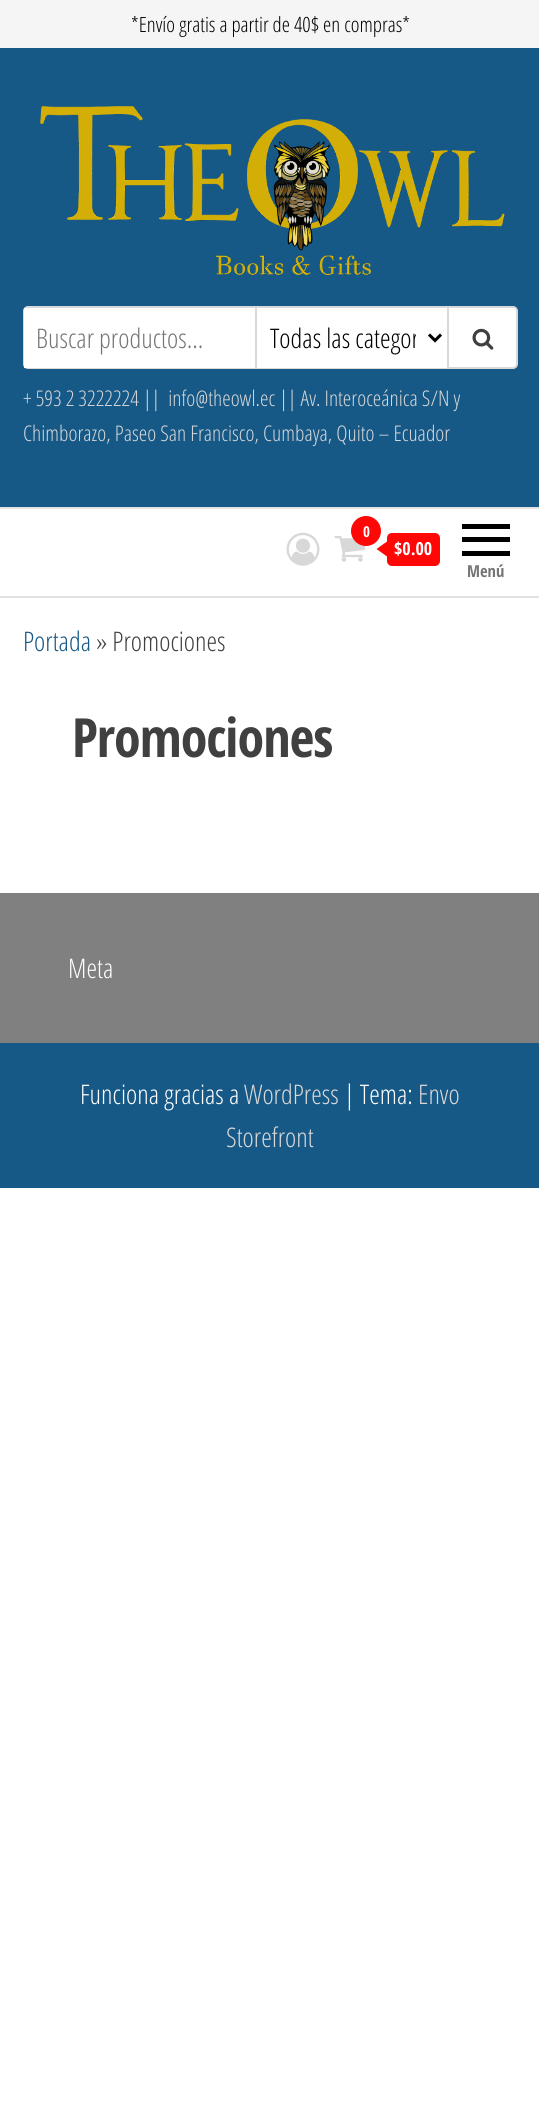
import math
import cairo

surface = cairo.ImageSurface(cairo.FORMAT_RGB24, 539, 2107)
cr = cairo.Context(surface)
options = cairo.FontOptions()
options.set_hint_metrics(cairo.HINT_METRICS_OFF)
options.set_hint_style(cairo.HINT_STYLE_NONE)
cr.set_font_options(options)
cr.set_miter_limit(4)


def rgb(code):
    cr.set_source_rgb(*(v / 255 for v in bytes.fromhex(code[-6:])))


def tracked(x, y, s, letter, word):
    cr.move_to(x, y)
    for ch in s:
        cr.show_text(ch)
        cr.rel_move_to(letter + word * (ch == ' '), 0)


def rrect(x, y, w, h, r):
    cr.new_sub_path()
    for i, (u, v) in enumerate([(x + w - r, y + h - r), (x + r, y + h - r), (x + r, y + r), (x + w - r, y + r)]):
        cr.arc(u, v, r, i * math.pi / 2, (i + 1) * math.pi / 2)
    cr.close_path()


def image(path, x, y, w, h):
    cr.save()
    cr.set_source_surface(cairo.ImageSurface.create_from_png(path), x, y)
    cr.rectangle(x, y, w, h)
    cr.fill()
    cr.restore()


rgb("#ffffff")
cr.paint()
rgb("#f5f5f5")
cr.rectangle(0, 0, 539, 48)
cr.fill()
rgb("#165886")
cr.rectangle(0, 48, 539, 459)
cr.fill()
image("img/1.png", 40, 106, 465, 169)
rgb("#ffffff")
rrect(24, 307, 493, 61, 4)
cr.fill_preserve()
rgb("#d9d9d9")
cr.stroke()
for x, y, w, h, color in [
    (24, 308, 231, 60, "#ffffff"),
    (255, 308, 2, 60, "#d9d9d9"),
    (257, 367, 190, 1, "#ffffff"),
]:
    rgb(color)
    cr.rectangle(x, y, w, h)
    cr.fill()
cr.new_path()
cr.move_to(429, 334.5)
cr.line_to(435, 340.5)
cr.line_to(441, 334.5)
rgb("#000000")
cr.set_line_width(3)
cr.stroke()
rgb("#d9d9d9")
cr.rectangle(447, 308, 2, 60)
cr.fill()
image("img/2.png", 472, 328, 22, 22)
rgb("#e2e2e2")
cr.rectangle(0, 507, 539, 2)
cr.fill()
cr.rectangle(0, 596, 539, 2)
cr.fill()
image("img/3.png", 286, 532, 34, 34)
image("img/4.png", 334, 536, 32, 26)
rgb("#ff0707")
cr.arc(366, 531, 15, 0, 2 * math.pi)
cr.fill()
rrect(387, 533, 53, 33, 5)
cr.fill()
cr.new_path()
cr.move_to(387, 541.5)
cr.line_to(387, 556.5)
cr.line_to(376.5, 549)
cr.close_path()
cr.fill()
for x, y, w, h, color in [
    (462, 524, 48, 5, "#000000"),
    (462, 537, 48, 5, "#000000"),
    (462, 551, 48, 5, "#000000"),
    (0, 893, 539, 150, "#808080"),
    (0, 1043, 539, 145, "#165886"),
]:
    rgb(color)
    cr.rectangle(x, y, w, h)
    cr.fill()
cr.select_font_face("Open Sans Condensed Light")
cr.set_font_size(21)
rgb("#000000")
cr.move_to(131, 32)
cr.show_text("*Envío gratis a partir de 40$ en compras*")
cr.set_font_size(27)
rgb("#757575")
cr.move_to(36, 348)
cr.show_text("Buscar productos...")
cr.save()
cr.rectangle(270, 318, 146, 39)
cr.clip()
rgb("#000000")
cr.move_to(270, 348)
cr.show_text("Todas las categor")
cr.restore()
cr.set_font_size(21.6)
rgb("#d8d8d8")
cr.move_to(23, 406)
cr.show_text("+ 593 2 3222224 ||  info@theowl.ec || Av. Interoceánica S/N y")
cr.move_to(23, 441)
cr.show_text("Chimborazo, Paseo San Francisco, Cumbaya, Quito – Ecuador")
cr.select_font_face("Open Sans Condensed", cairo.FONT_SLANT_NORMAL, cairo.FONT_WEIGHT_BOLD)
cr.set_font_size(15)
rgb("#ffffff")
cr.move_to(363, 537)
cr.show_text("0")
cr.set_font_size(18)
cr.move_to(394, 555)
cr.show_text("$0.00")
cr.set_font_size(16.5)
rgb("#757575")
cr.move_to(467, 577)
cr.show_text("Menú")
cr.select_font_face("Open Sans Condensed Light")
cr.set_font_size(27)
rgb("#165886")
cr.move_to(23, 651)
cr.show_text("Portada")
rgb("#404040")
cr.move_to(96, 651)
cr.show_text("» Promociones")
cr.select_font_face("Open Sans Condensed", cairo.FONT_SLANT_NORMAL, cairo.FONT_WEIGHT_BOLD)
cr.set_font_size(54)
tracked(72, 757, "Promociones", -1, 0)
cr.select_font_face("Open Sans Condensed Light")
cr.set_font_size(27)
rgb("#ffffff")
cr.move_to(68, 978)
cr.show_text("Meta")
cr.move_to(80, 1104)
cr.show_text("Funciona gracias a")
rgb("#d8d8d8")
cr.move_to(244, 1104)
cr.show_text("WordPress")
rgb("#ffffff")
cr.move_to(344, 1104)
cr.show_text("| Tema:")
rgb("#d8d8d8")
cr.move_to(418, 1104)
cr.show_text("Envo")
cr.move_to(226, 1147)
cr.show_text("Storefront")
surface.write_to_png("page.png")
